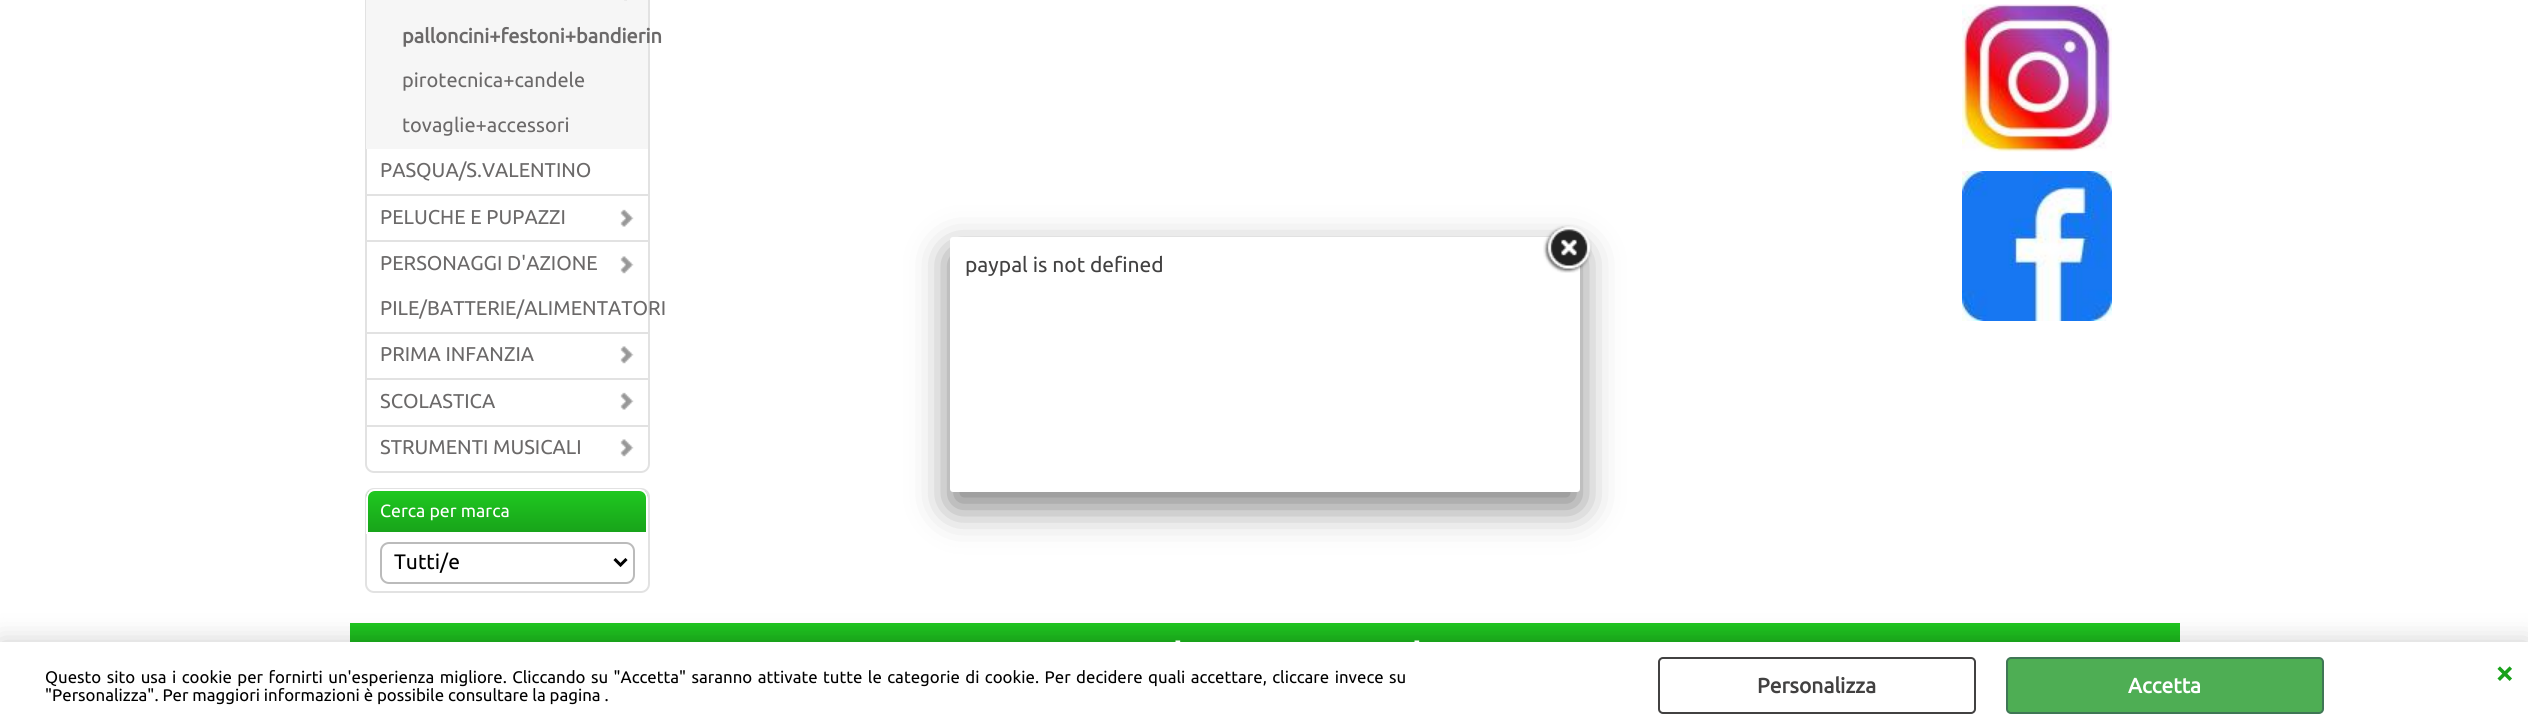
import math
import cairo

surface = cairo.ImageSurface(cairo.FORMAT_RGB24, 2528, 728)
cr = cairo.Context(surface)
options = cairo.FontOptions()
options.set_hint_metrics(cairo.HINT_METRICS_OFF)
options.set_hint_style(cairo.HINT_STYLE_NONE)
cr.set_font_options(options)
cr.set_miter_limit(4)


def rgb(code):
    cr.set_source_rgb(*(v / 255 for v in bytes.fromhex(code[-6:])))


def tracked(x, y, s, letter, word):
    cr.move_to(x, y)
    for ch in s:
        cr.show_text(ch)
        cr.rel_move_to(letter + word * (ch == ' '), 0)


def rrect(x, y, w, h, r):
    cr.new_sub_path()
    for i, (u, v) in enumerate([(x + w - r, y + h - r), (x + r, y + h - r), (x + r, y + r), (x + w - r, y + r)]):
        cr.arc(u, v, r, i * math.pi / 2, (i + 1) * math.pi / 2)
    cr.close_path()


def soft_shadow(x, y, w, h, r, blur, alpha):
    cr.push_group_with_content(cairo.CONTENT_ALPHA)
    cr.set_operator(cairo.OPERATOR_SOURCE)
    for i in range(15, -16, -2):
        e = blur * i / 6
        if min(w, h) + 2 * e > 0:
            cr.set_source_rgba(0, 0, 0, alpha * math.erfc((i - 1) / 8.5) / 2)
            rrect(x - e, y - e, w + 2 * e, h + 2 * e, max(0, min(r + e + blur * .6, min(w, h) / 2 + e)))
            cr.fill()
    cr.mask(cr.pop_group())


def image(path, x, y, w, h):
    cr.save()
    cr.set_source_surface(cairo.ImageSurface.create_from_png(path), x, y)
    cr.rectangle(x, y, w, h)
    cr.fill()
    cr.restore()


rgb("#ffffff")
cr.paint()
rrect(366, -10, 283, 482, 8)
rgb("#e2e2e2")
cr.stroke()
rgb("#f6f6f6")
cr.rectangle(366, 0, 282, 149)
cr.fill()
image("img/1.png", 624, 0, 3, 1)
rgb("#e2e2e2")
cr.rectangle(366, 194, 282, 2)
cr.fill()
image("img/2.png", 620, 209, 14, 18)
cr.rectangle(366, 240, 282, 2)
cr.fill()
image("img/3.png", 620, 256, 14, 18)
cr.rectangle(366, 332, 282, 2)
cr.fill()
image("img/3.png", 620, 346, 14, 18)
cr.rectangle(366, 378, 282, 2)
cr.fill()
image("img/2.png", 620, 392, 14, 18)
cr.rectangle(366, 425, 282, 2)
cr.fill()
image("img/3.png", 620, 439, 14, 18)
rrect(366, 489, 283, 103, 8)
cr.stroke()
cr.save()
cr.new_path()
cr.move_to(375, 489)
cr.line_to(639, 489)
cr.curve_to(644, 489, 648, 493, 648, 498)
cr.line_to(648, 534)
cr.line_to(366, 534)
cr.line_to(366, 498)
cr.curve_to(366, 493, 370, 489, 375, 489)
cr.close_path()
cr.clip()
gradient = cairo.LinearGradient(507, 491, 507, 533)
gradient.add_color_stop_rgba(0, 0.122, 0.784, 0.125, 1)
gradient.add_color_stop_rgba(1, 0.094, 0.639, 0.102, 1)
cr.set_source(gradient)
cr.rectangle(366, 491, 282, 41)
cr.fill()
cr.restore()
cr.new_path()
cr.move_to(375, 490)
cr.line_to(639, 490)
cr.curve_to(643.5, 490, 647, 493.5, 647, 498)
cr.line_to(647, 533)
cr.line_to(367, 533)
cr.line_to(367, 498)
cr.curve_to(367, 493.5, 370.5, 490, 375, 490)
cr.close_path()
rgb("#ffffff")
cr.stroke()
rrect(381, 543, 253, 40, 8)
rgb("#bbbbbb")
cr.stroke()
cr.new_path()
cr.move_to(614.5, 559)
cr.line_to(620.5, 565)
cr.line_to(626.5, 559)
rgb("#000000")
cr.set_line_width(3)
cr.stroke()
image("img/4.png", 1962, 4, 150, 148)
image("img/5.png", 1962, 171, 150, 150)
rgb("#000000")
soft_shadow(950, 252, 630, 255, 3, 19, 0.5)
rgb("#ffffff")
rrect(950, 237, 630, 255, 3)
cr.fill()
image("img/6.png", 1543, 225, 49, 48)
gradient = cairo.LinearGradient(1265, 622, 1265, 659)
gradient.add_color_stop_rgba(0, 0.122, 0.784, 0.125, 1)
gradient.add_color_stop_rgba(1, 0.094, 0.639, 0.102, 1)
cr.set_source(gradient)
cr.rectangle(350, 623, 1830, 19)
cr.fill()
rgb("#000000")
soft_shadow(0, 642, 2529, 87, 0, 13.5, 0.2)
rgb("#ffffff")
cr.rectangle(0, 642, 2528, 86)
cr.fill()
rrect(1659, 658, 316, 55, 4)
rgb("#424141")
cr.set_line_width(2)
cr.stroke()
rgb("#4eae54")
rrect(2007, 658, 316, 55, 4)
cr.fill_preserve()
rgb("#3f7755")
cr.stroke()
cr.select_font_face("Ubuntu", cairo.FONT_SLANT_NORMAL, cairo.FONT_WEIGHT_BOLD)
cr.set_font_size(20)
rgb("#6b6969")
cr.move_to(402, 43)
cr.show_text("palloncini+festoni+bandierin")
cr.select_font_face("Ubuntu")
for x, y, s in [
    (402, 87, "pirotecnica+candele"),
    (402, 132, "tovaglie+accessori"),
    (380, 177, "PASQUA/S.VALENTINO"),
    (380, 224, "PELUCHE E PUPAZZI"),
    (380, 270, "PERSONAGGI D'AZIONE"),
    (380, 315, "PILE/BATTERIE/ALIMENTATORI"),
    (380, 361, "PRIMA INFANZIA"),
    (380, 408, "SCOLASTICA"),
    (380, 454, "STRUMENTI MUSICALI"),
]:
    cr.move_to(x, y)
    cr.show_text(s)
cr.set_font_size(17.75)
rgb("#ffffff")
cr.move_to(380, 517)
cr.show_text("Cerca per marca")
cr.set_font_size(21)
rgb("#000000")
cr.move_to(394, 569)
cr.show_text("Tutti/e")
rgb("#424141")
cr.move_to(965, 272)
cr.show_text("paypal is not defined")
cr.set_font_size(19)
rgb("#ffffff")
cr.move_to(1175, 647)
cr.show_text("-")
cr.move_to(1414, 647)
cr.show_text("-")
cr.set_font_size(16.8)
rgb("#000000")
tracked(45, 683, "Questo sito usa i cookie per fornirti un'esperienza migliore. Cliccando su \"Accetta\" saranno attivate tutte le categorie di cookie. Per decidere quali accettare, cliccare invece su", 0, 1.6)
cr.move_to(45, 701)
cr.show_text("\"Personalizza\". Per maggiori informazioni è possibile consultare la pagina .")
cr.select_font_face("Ubuntu", cairo.FONT_SLANT_NORMAL, cairo.FONT_WEIGHT_BOLD)
cr.set_font_size(21)
rgb("#424141")
cr.move_to(1757, 693)
cr.show_text("Personalizza")
rgb("#ffffff")
cr.move_to(2128, 693)
cr.show_text("Accetta")
cr.set_font_size(33)
rgb("#18a11a")
cr.move_to(2495, 684)
cr.show_text("×")
surface.write_to_png("page.png")
